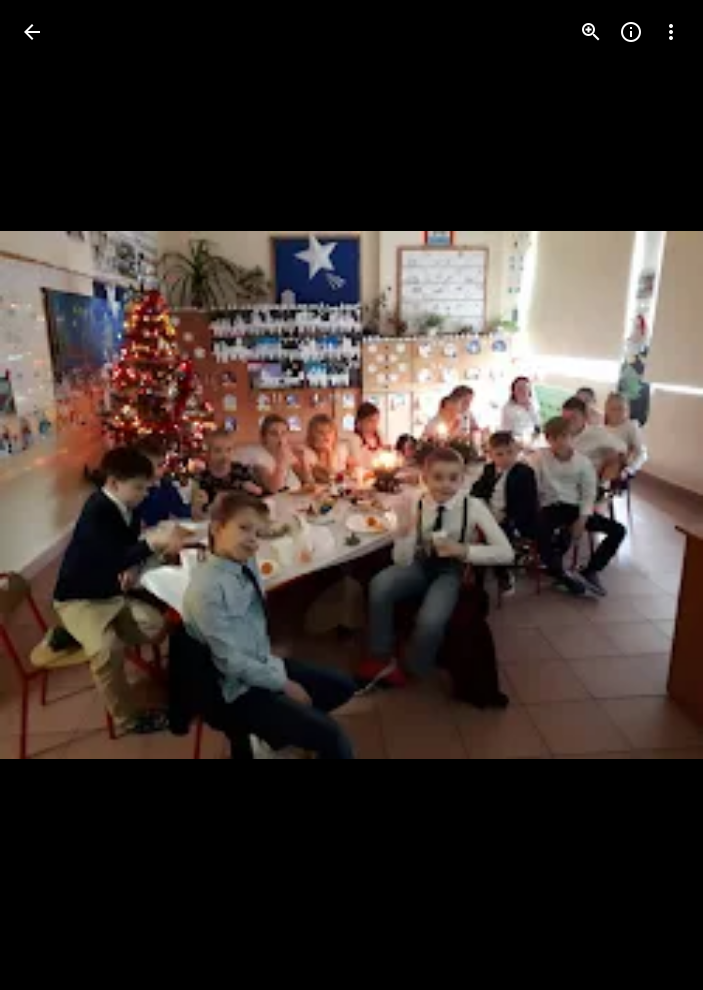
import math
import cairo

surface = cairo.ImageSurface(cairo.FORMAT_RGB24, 703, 990)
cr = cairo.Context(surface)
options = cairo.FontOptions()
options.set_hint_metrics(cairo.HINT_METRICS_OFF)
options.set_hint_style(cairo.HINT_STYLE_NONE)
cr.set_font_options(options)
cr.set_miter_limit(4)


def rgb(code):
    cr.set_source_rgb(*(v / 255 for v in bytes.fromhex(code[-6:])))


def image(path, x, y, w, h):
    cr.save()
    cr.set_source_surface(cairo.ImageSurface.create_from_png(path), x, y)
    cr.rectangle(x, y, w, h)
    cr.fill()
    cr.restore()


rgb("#000000")
cr.paint()
image("img/1.png", 24, 24, 16, 16)
image("img/2.png", 582, 23, 18, 18)
image("img/3.png", 621, 22, 20, 20)
image("img/4.png", 669, 24, 4, 16)
image("img/5.png", 0, 231, 703, 528)
surface.write_to_png("page.png")
